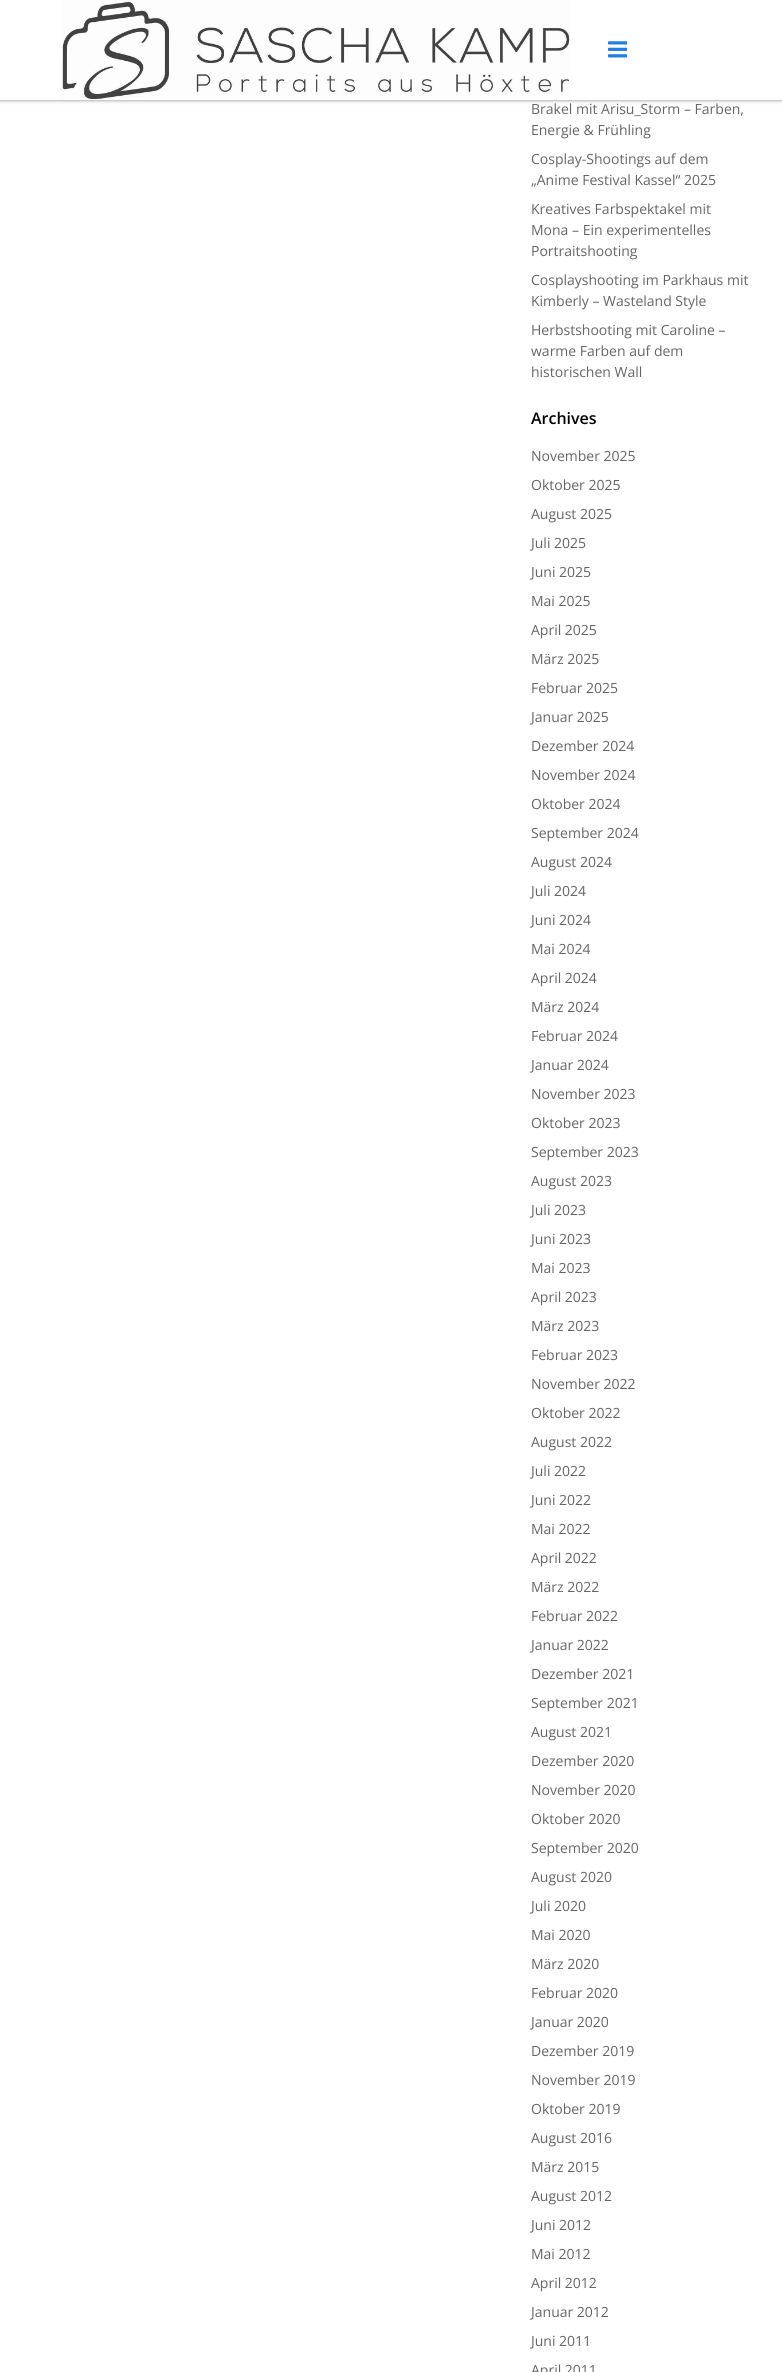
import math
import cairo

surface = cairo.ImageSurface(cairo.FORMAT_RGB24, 782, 2372)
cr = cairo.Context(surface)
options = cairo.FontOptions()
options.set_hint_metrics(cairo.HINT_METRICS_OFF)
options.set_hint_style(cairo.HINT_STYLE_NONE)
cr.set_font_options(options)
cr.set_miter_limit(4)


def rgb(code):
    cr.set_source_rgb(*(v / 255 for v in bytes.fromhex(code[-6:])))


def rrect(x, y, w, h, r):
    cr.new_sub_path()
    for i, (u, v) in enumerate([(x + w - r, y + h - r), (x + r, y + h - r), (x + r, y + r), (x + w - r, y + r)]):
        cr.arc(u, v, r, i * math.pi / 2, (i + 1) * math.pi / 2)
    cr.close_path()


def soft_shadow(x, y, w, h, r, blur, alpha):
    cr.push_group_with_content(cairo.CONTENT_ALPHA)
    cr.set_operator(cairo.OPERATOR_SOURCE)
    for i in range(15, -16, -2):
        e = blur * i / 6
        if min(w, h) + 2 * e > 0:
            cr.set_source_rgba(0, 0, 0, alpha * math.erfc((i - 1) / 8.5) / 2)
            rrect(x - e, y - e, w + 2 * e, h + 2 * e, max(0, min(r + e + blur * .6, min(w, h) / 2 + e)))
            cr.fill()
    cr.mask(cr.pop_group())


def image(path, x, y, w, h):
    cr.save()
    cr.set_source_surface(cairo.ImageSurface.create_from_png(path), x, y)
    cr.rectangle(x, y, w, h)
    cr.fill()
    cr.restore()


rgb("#ffffff")
cr.paint()
rgb("#000000")
soft_shadow(0, 0, 782, 100, 0, 2, 0.5)
rgb("#ffffff")
cr.rectangle(0, 0, 782, 100)
cr.fill()
image("img/1.png", 62, 0, 508, 100)
image("img/2.png", 608, 41, 19, 17)
cr.select_font_face("Open Sans")
cr.set_font_size(14)
rgb("#666666")
for x, y, s in [
    (531, 114, "Brakel mit Arisu_Storm – Farben,"),
    (531, 135, "Energie & Frühling"),
    (531, 164, "Cosplay-Shootings auf dem"),
    (531, 185, "„Anime Festival Kassel“ 2025"),
    (531, 214, "Kreatives Farbspektakel mit"),
    (531, 235, "Mona – Ein experimentelles"),
    (531, 256, "Portraitshooting"),
    (531, 285, "Cosplayshooting im Parkhaus mit"),
    (531, 306, "Kimberly – Wasteland Style"),
    (531, 335, "Herbstshooting mit Caroline –"),
    (531, 356, "warme Farben auf dem"),
    (531, 377, "historischen Wall"),
]:
    cr.move_to(x, y)
    cr.show_text(s)
cr.select_font_face("Open Sans SemiBold")
cr.set_font_size(16)
rgb("#000000")
cr.move_to(531, 424)
cr.show_text("Archives")
cr.select_font_face("Open Sans")
cr.set_font_size(14)
rgb("#666666")
for x, y, s in [
    (531, 461, "November 2025"),
    (531, 490, "Oktober 2025"),
    (531, 519, "August 2025"),
    (531, 548, "Juli 2025"),
    (531, 577, "Juni 2025"),
    (531, 606, "Mai 2025"),
    (531, 635, "April 2025"),
    (531, 664, "März 2025"),
    (531, 693, "Februar 2025"),
    (531, 722, "Januar 2025"),
    (531, 751, "Dezember 2024"),
    (531, 780, "November 2024"),
    (531, 809, "Oktober 2024"),
    (531, 838, "September 2024"),
    (531, 867, "August 2024"),
    (531, 896, "Juli 2024"),
    (531, 925, "Juni 2024"),
    (531, 954, "Mai 2024"),
    (531, 983, "April 2024"),
    (531, 1012, "März 2024"),
    (531, 1041, "Februar 2024"),
    (531, 1070, "Januar 2024"),
    (531, 1099, "November 2023"),
    (531, 1128, "Oktober 2023"),
    (531, 1157, "September 2023"),
    (531, 1186, "August 2023"),
    (531, 1215, "Juli 2023"),
    (531, 1244, "Juni 2023"),
    (531, 1273, "Mai 2023"),
    (531, 1302, "April 2023"),
    (531, 1331, "März 2023"),
    (531, 1360, "Februar 2023"),
    (531, 1389, "November 2022"),
    (531, 1418, "Oktober 2022"),
    (531, 1447, "August 2022"),
    (531, 1476, "Juli 2022"),
    (531, 1505, "Juni 2022"),
    (531, 1534, "Mai 2022"),
    (531, 1563, "April 2022"),
    (531, 1592, "März 2022"),
    (531, 1621, "Februar 2022"),
    (531, 1650, "Januar 2022"),
    (531, 1679, "Dezember 2021"),
    (531, 1708, "September 2021"),
    (531, 1737, "August 2021"),
    (531, 1766, "Dezember 2020"),
    (531, 1795, "November 2020"),
    (531, 1824, "Oktober 2020"),
    (531, 1853, "September 2020"),
    (531, 1882, "August 2020"),
    (531, 1911, "Juli 2020"),
    (531, 1940, "Mai 2020"),
    (531, 1969, "März 2020"),
    (531, 1998, "Februar 2020"),
    (531, 2027, "Januar 2020"),
    (531, 2056, "Dezember 2019"),
    (531, 2085, "November 2019"),
    (531, 2114, "Oktober 2019"),
    (531, 2143, "August 2016"),
    (531, 2172, "März 2015"),
    (531, 2201, "August 2012"),
    (531, 2230, "Juni 2012"),
    (531, 2259, "Mai 2012"),
    (531, 2288, "April 2012"),
    (531, 2317, "Januar 2012"),
    (531, 2346, "Juni 2011"),
    (531, 2375, "April 2011"),
]:
    cr.move_to(x, y)
    cr.show_text(s)
surface.write_to_png("page.png")
